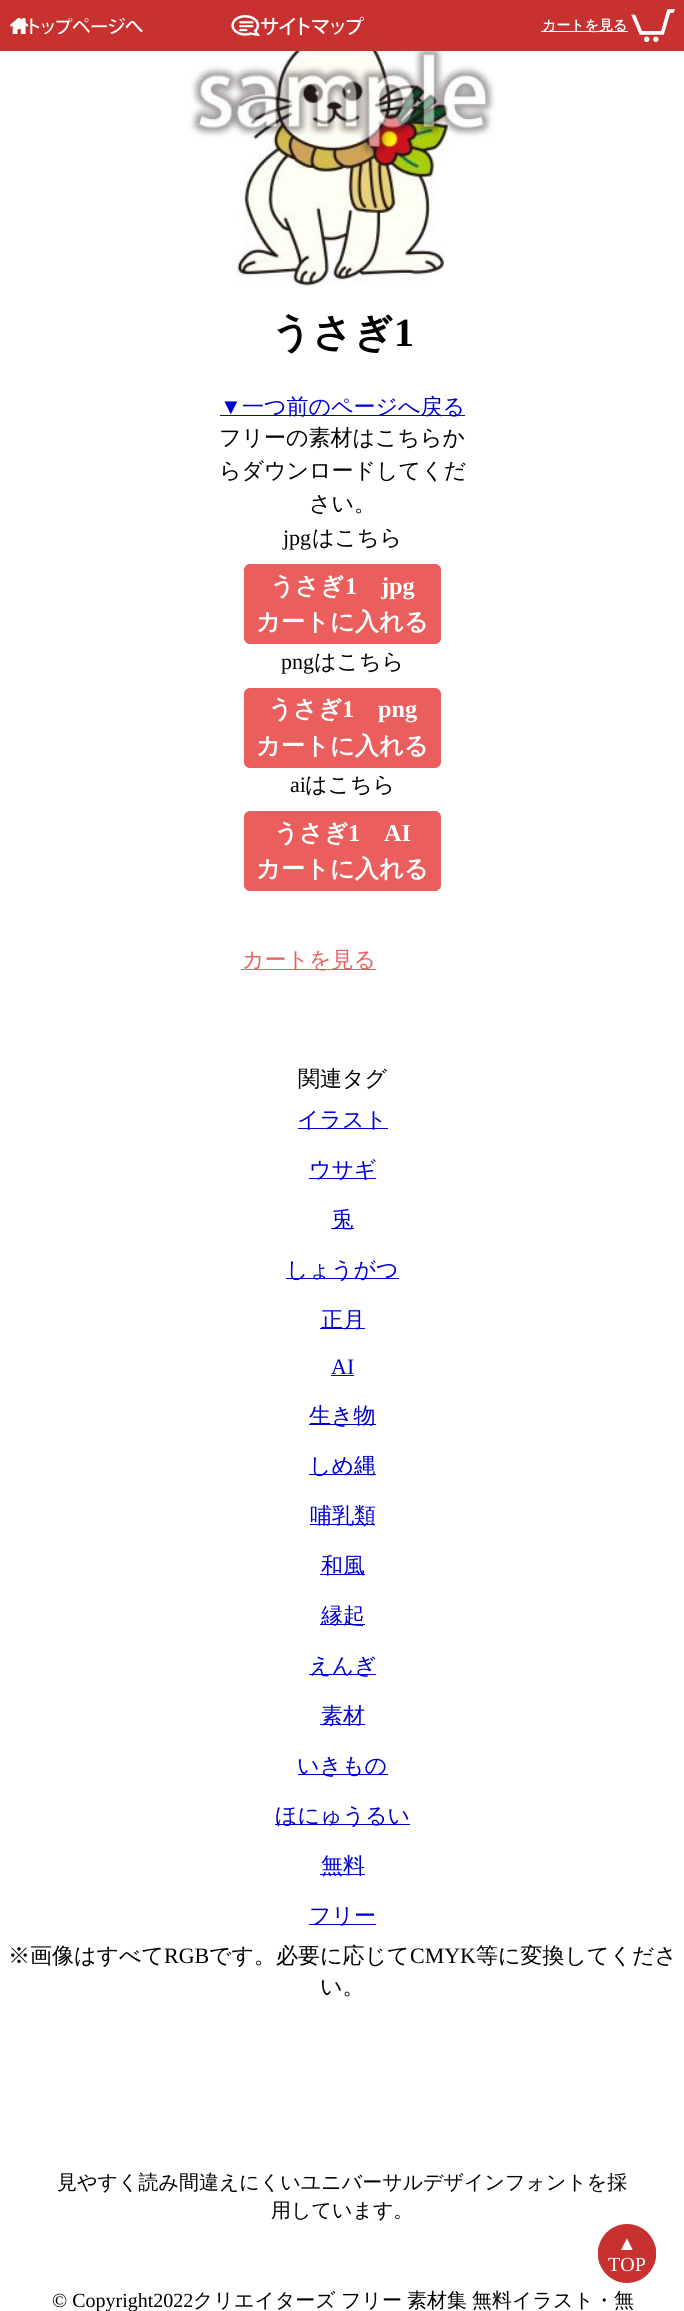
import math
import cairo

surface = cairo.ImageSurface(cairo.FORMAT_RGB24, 684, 2311)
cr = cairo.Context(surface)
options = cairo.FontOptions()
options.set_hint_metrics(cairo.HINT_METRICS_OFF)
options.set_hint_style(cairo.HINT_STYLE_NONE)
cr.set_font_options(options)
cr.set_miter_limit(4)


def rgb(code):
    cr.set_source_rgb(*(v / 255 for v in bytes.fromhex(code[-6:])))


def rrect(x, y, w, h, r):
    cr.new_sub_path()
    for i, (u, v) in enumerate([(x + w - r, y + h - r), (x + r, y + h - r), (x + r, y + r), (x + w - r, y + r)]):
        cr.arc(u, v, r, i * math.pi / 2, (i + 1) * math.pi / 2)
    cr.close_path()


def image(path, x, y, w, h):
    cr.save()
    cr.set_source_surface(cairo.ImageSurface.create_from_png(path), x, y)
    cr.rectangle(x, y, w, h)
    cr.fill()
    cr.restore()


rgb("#ffffff")
cr.paint()
rgb("#c73230")
cr.rectangle(0, 0, 684, 51)
cr.fill()
image("img/1.png", 10, 18, 133, 16)
image("img/2.png", 231, 15, 133, 21)
rgb("#ffffff")
cr.rectangle(541, 31, 87, 1)
cr.fill()
image("img/3.png", 631, 9, 44, 33)
image("img/4.png", 189, 51, 307, 237)
rgb("#0000cc")
cr.rectangle(220, 415, 245, 1)
cr.fill()
rgb("#ea5e5d")
rrect(244, 564, 197, 80, 6)
cr.fill()
rrect(244, 688, 197, 80, 6)
cr.fill()
rrect(244, 811, 197, 80, 6)
cr.fill()
for x, y, w, h, color in [
    (241, 969, 135, 1, "#ea5e5d"),
    (298, 1128, 90, 1, "#0000cc"),
    (309, 1178, 67, 1, "#0000cc"),
    (331, 1228, 23, 1, "#0000cc"),
    (286, 1278, 113, 1, "#0000cc"),
    (320, 1328, 45, 1, "#0000cc"),
    (331, 1375, 23, 1, "#0000cc"),
    (309, 1424, 67, 1, "#0000cc"),
    (309, 1474, 67, 1, "#0000cc"),
    (310, 1524, 65, 1, "#0000cc"),
    (320, 1574, 45, 1, "#0000cc"),
    (320, 1624, 45, 1, "#0000cc"),
    (309, 1674, 67, 1, "#0000cc"),
    (320, 1724, 45, 1, "#0000cc"),
    (298, 1774, 90, 1, "#0000cc"),
    (275, 1824, 135, 1, "#0000cc"),
    (320, 1874, 45, 1, "#0000cc"),
    (309, 1924, 67, 1, "#0000cc"),
]:
    rgb(color)
    cr.rectangle(x, y, w, h)
    cr.fill()
cr.save()
rrect(598, 2224, 58, 59, 29)
cr.clip()
rgb("#c73230")
cr.new_path()
cr.move_to(627, 2224)
cr.curve_to(643, 2224, 656, 2237, 656, 2253)
cr.line_to(656, 2264)
cr.line_to(598, 2264)
cr.line_to(598, 2253)
cr.curve_to(598, 2237, 611, 2224, 627, 2224)
cr.close_path()
cr.fill()
cr.new_path()
cr.move_to(598, 2245)
cr.line_to(656, 2245)
cr.line_to(656, 2254)
cr.curve_to(656, 2270, 643, 2283, 627, 2283)
cr.curve_to(611, 2283, 598, 2270, 598, 2254)
cr.close_path()
cr.fill()
cr.restore()
cr.select_font_face("WenQuanYi Zen Hei", cairo.FONT_SLANT_NORMAL, cairo.FONT_WEIGHT_BOLD)
cr.set_font_size(14)
rgb("#ffffff")
cr.move_to(542, 30)
cr.show_text("カートを見る")
cr.set_font_size(40)
rgb("#000000")
cr.move_to(271, 346)
cr.show_text("うさぎ")
cr.select_font_face("Liberation Serif", cairo.FONT_SLANT_NORMAL, cairo.FONT_WEIGHT_BOLD)
cr.move_to(394, 346)
cr.show_text("1")
cr.select_font_face("Liberation Serif")
cr.set_font_size(22)
rgb("#0000cc")
cr.move_to(220, 414)
cr.show_text("▼")
cr.select_font_face("WenQuanYi Zen Hei Medium")
cr.move_to(242, 414)
cr.show_text("一つ前のページへ戻る")
rgb("#000000")
for x, y, s in [
    (219, 445, "フリーの素材はこちらか"),
    (219, 478, "らダウンロードしてくだ"),
    (309, 511, "さい。"),
]:
    cr.move_to(x, y)
    cr.show_text(s)
cr.select_font_face("Liberation Serif")
cr.move_to(283, 545)
cr.show_text("jpg")
cr.select_font_face("WenQuanYi Zen Hei Medium")
cr.move_to(312, 545)
cr.show_text("はこちら")
cr.select_font_face("WenQuanYi Zen Hei", cairo.FONT_SLANT_NORMAL, cairo.FONT_WEIGHT_BOLD)
cr.set_font_size(24.25)
rgb("#ffffff")
cr.move_to(270, 594)
cr.show_text("うさぎ")
cr.select_font_face("Liberation Serif", cairo.FONT_SLANT_NORMAL, cairo.FONT_WEIGHT_BOLD)
cr.move_to(345, 594)
cr.show_text("1")
cr.move_to(381, 594)
cr.show_text("jpg")
cr.select_font_face("WenQuanYi Zen Hei", cairo.FONT_SLANT_NORMAL, cairo.FONT_WEIGHT_BOLD)
cr.move_to(256, 630)
cr.show_text("カートに入れる")
cr.select_font_face("Liberation Serif")
cr.set_font_size(22)
rgb("#000000")
cr.move_to(281, 669)
cr.show_text("png")
cr.select_font_face("WenQuanYi Zen Hei Medium")
cr.move_to(314, 669)
cr.show_text("はこちら")
cr.select_font_face("WenQuanYi Zen Hei", cairo.FONT_SLANT_NORMAL, cairo.FONT_WEIGHT_BOLD)
cr.set_font_size(24.25)
rgb("#ffffff")
cr.move_to(268, 717)
cr.show_text("うさぎ")
cr.select_font_face("Liberation Serif", cairo.FONT_SLANT_NORMAL, cairo.FONT_WEIGHT_BOLD)
cr.move_to(342, 717)
cr.show_text("1")
cr.move_to(378, 717)
cr.show_text("png")
cr.select_font_face("WenQuanYi Zen Hei", cairo.FONT_SLANT_NORMAL, cairo.FONT_WEIGHT_BOLD)
cr.move_to(256, 754)
cr.show_text("カートに入れる")
cr.select_font_face("Liberation Serif")
cr.set_font_size(22)
rgb("#000000")
cr.move_to(290, 792)
cr.show_text("ai")
cr.select_font_face("WenQuanYi Zen Hei Medium")
cr.move_to(305, 792)
cr.show_text("はこちら")
cr.select_font_face("WenQuanYi Zen Hei", cairo.FONT_SLANT_NORMAL, cairo.FONT_WEIGHT_BOLD)
cr.set_font_size(24.25)
rgb("#ffffff")
cr.move_to(274, 841)
cr.show_text("うさぎ")
cr.select_font_face("Liberation Serif", cairo.FONT_SLANT_NORMAL, cairo.FONT_WEIGHT_BOLD)
cr.move_to(348, 841)
cr.show_text("1")
cr.move_to(384, 841)
cr.show_text("AI")
cr.select_font_face("WenQuanYi Zen Hei", cairo.FONT_SLANT_NORMAL, cairo.FONT_WEIGHT_BOLD)
cr.move_to(256, 877)
cr.show_text("カートに入れる")
cr.select_font_face("WenQuanYi Zen Hei Medium")
cr.set_font_size(22)
rgb("#ea5e5d")
cr.move_to(242, 967)
cr.show_text("カートを見る")
rgb("#000000")
cr.move_to(298, 1086)
cr.show_text("関連タグ")
rgb("#0000cc")
for x, y, s in [
    (297, 1127, "イラスト"),
    (309, 1177, "ウサギ"),
    (332, 1227, "兎"),
    (286, 1277, "しょうがつ"),
    (321, 1327, "正月"),
]:
    cr.move_to(x, y)
    cr.show_text(s)
cr.select_font_face("Liberation Serif")
cr.move_to(331, 1374)
cr.show_text("AI")
cr.select_font_face("WenQuanYi Zen Hei Medium")
for x, y, s in [
    (309, 1423, "生き物"),
    (309, 1473, "しめ縄"),
    (310, 1523, "哺乳類"),
    (321, 1573, "和風"),
    (321, 1623, "縁起"),
    (309, 1673, "えんぎ"),
    (321, 1723, "素材"),
    (297, 1773, "いきもの"),
    (275, 1823, "ほにゅうるい"),
    (321, 1873, "無料"),
    (309, 1923, "フリー"),
]:
    cr.move_to(x, y)
    cr.show_text(s)
rgb("#000000")
cr.move_to(8, 1963)
cr.show_text("※画像はすべて")
cr.select_font_face("Liberation Serif")
cr.move_to(164, 1963)
cr.show_text("RGB")
cr.select_font_face("WenQuanYi Zen Hei Medium")
cr.move_to(209, 1963)
cr.show_text("です。必要に応じて")
cr.select_font_face("Liberation Serif")
cr.move_to(410, 1963)
cr.show_text("CMYK")
cr.select_font_face("WenQuanYi Zen Hei Medium")
cr.move_to(476, 1963)
cr.show_text("等に変換してくださ")
cr.move_to(320, 1994)
cr.show_text("い。")
cr.set_font_size(20)
cr.move_to(57, 2189)
cr.show_text("見やすく読み間違えにくいユニバーサルデザインフォントを採")
cr.move_to(271, 2217)
cr.show_text("用しています。")
cr.select_font_face("Liberation Serif")
rgb("#ffffff")
cr.move_to(617, 2250)
cr.show_text("▲")
cr.move_to(608, 2271)
cr.show_text("TOP")
rgb("#000000")
cr.move_to(52, 2307)
cr.show_text("© Copyright2022")
cr.select_font_face("WenQuanYi Zen Hei Medium")
for x, y, s in [
    (193, 2307, "クリエイターズ"),
    (341, 2307, "フリー"),
    (407, 2307, "素材集"),
    (472, 2307, "無料イラスト・無"),
]:
    cr.move_to(x, y)
    cr.show_text(s)
surface.write_to_png("page.png")
